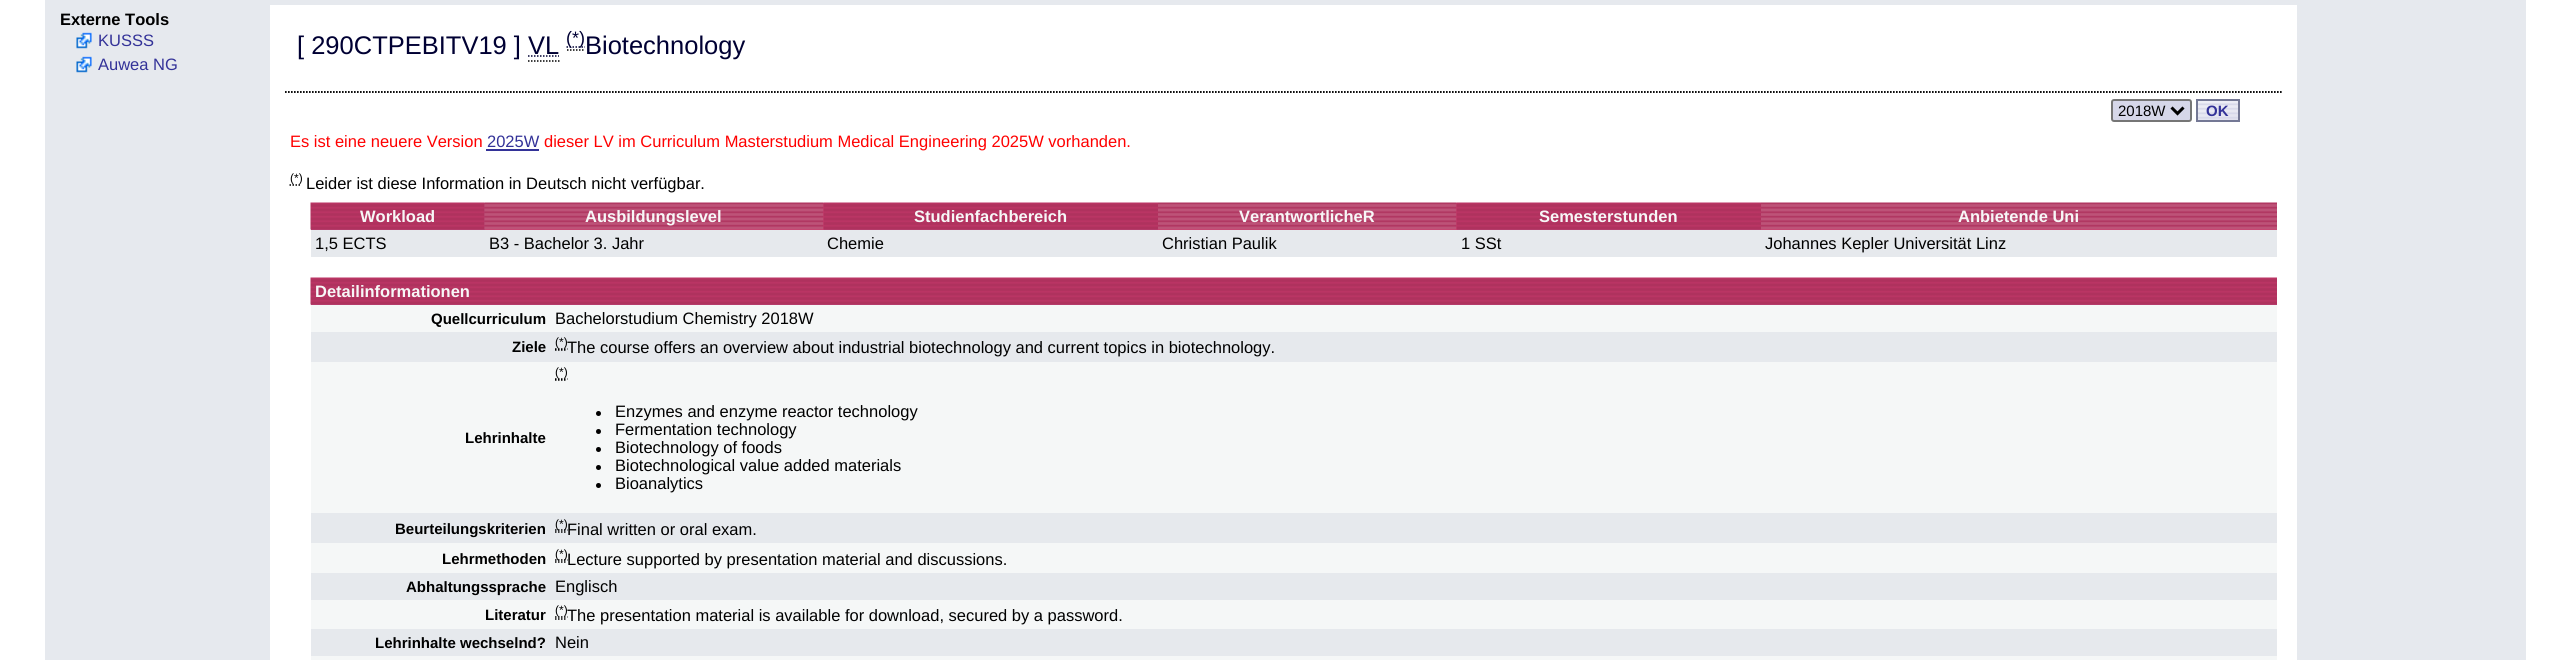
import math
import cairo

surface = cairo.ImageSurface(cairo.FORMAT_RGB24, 2571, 660)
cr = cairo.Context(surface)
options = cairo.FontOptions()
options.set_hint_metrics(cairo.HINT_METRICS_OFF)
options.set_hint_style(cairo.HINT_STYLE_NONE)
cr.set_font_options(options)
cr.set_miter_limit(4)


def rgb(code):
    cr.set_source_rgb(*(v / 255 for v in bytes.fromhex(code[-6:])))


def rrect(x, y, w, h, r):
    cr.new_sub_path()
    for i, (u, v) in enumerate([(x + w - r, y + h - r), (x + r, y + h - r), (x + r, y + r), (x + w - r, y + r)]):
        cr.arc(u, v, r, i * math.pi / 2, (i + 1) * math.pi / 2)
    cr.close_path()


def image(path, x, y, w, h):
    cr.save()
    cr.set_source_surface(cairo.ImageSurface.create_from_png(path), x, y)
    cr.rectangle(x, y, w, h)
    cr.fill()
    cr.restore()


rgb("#ffffff")
cr.paint()
rgb("#e6e9ee")
cr.rectangle(45, 0, 225, 660)
cr.fill()
image("img/1.png", 76, 32, 16, 17)
image("img/1.png", 76, 56, 16, 17)
cr.rectangle(270, 0, 2256, 5)
cr.fill()
cr.rectangle(2297, 3, 2, 657)
cr.fill()
cr.new_path()
cr.move_to(285, 92)
cr.line_to(2281.5, 92)
rgb("#000000")
cr.set_line_width(1.5)
cr.set_dash([1.5, 1.5])
cr.stroke()
cr.new_path()
cr.move_to(285, 92)
cr.line_to(2281.5, 92)
cr.stroke()
cr.new_path()
cr.move_to(567, 50)
cr.line_to(585, 50)
cr.stroke()
cr.new_path()
cr.move_to(566.5, 47)
cr.line_to(585, 47)
rgb("#000033")
cr.stroke()
cr.new_path()
cr.move_to(528, 56)
cr.line_to(559, 56)
cr.stroke()
cr.new_path()
cr.move_to(528, 61)
cr.line_to(559.5, 61)
rgb("#000000")
cr.stroke()
rgb("#d6d7e9")
rrect(2112, 100, 79, 21, 2)
cr.fill_preserve()
rgb("#767676")
cr.set_line_width(2)
cr.set_dash([])
cr.stroke()
cr.new_path()
cr.move_to(2171.5, 107.5)
cr.line_to(2177.5, 113.5)
cr.line_to(2183.5, 107.5)
rgb("#000000")
cr.set_line_width(3)
cr.stroke()
image("img/2.png", 2198, 101, 40, 19)
cr.rectangle(2197, 100, 42, 21)
rgb("#747895")
cr.set_line_width(2)
cr.stroke()
rgb("#333298")
cr.rectangle(486, 149, 53, 2)
cr.fill()
cr.new_path()
cr.move_to(289.5, 185)
cr.line_to(301.5, 185)
rgb("#000000")
cr.set_line_width(1.5)
cr.set_dash([1.5, 1.5])
cr.stroke()
rgb("#b24372")
cr.rectangle(311, 203, 174, 27)
cr.fill()
image("img/3.png", 310, 202, 175, 28)
rgb("#d03b6f")
cr.rectangle(485, 203, 339, 27)
cr.fill()
image("img/4.png", 484, 202, 340, 28)
rgb("#b24372")
cr.rectangle(824, 229, 334, 1)
cr.fill()
image("img/5.png", 823, 202, 335, 28)
rgb("#d03b6f")
cr.rectangle(1158, 203, 299, 27)
cr.fill()
image("img/6.png", 1158, 202, 299, 28)
rgb("#b24372")
cr.rectangle(1457, 229, 304, 1)
cr.fill()
image("img/7.png", 1456, 202, 305, 28)
rgb("#d03b6f")
cr.rectangle(1761, 229, 516, 1)
cr.fill()
image("img/8.png", 1761, 202, 516, 28)
rgb("#e6e9ed")
cr.rectangle(311, 230, 1966, 27)
cr.fill()
rgb("#b24372")
cr.rectangle(311, 304, 1966, 1)
cr.fill()
image("img/9.png", 310, 277, 1967, 28)
rgb("#f5f7f7")
cr.rectangle(311, 305, 1966, 27)
cr.fill()
rgb("#e6e9ed")
cr.rectangle(311, 332, 1966, 30)
cr.fill()
cr.new_path()
cr.move_to(555, 350)
cr.line_to(567, 350)
cr.move_to(555, 349)
cr.line_to(567.5, 349)
rgb("#000000")
cr.stroke()
rgb("#f5f7f7")
cr.rectangle(311, 362, 1966, 151)
cr.fill()
cr.new_path()
cr.move_to(555, 380)
cr.line_to(567, 380)
cr.move_to(555, 379)
cr.line_to(567.5, 379)
rgb("#000000")
cr.stroke()
cr.arc(598.5, 413.5, 2.5, 0, 2 * math.pi)
cr.fill()
cr.arc(598.5, 431.5, 2.5, 0, 2 * math.pi)
cr.fill()
cr.arc(598.5, 449.5, 2.5, 0, 2 * math.pi)
cr.fill()
cr.arc(598.5, 467.5, 2.5, 0, 2 * math.pi)
cr.fill()
cr.arc(598.5, 485.5, 2.5, 0, 2 * math.pi)
cr.fill()
rgb("#e6e9ed")
cr.rectangle(311, 513, 1966, 30)
cr.fill()
cr.new_path()
cr.move_to(555, 532)
cr.line_to(567, 532)
cr.move_to(555, 530)
cr.line_to(567.5, 530)
rgb("#000000")
cr.stroke()
rgb("#f5f7f7")
cr.rectangle(311, 543, 1966, 30)
cr.fill()
cr.new_path()
cr.move_to(555, 562)
cr.line_to(567, 562)
cr.move_to(555, 560)
cr.line_to(567.5, 560)
rgb("#000000")
cr.stroke()
rgb("#e6e9ed")
cr.rectangle(311, 573, 1966, 27)
cr.fill()
rgb("#f5f7f7")
cr.rectangle(311, 600, 1966, 29)
cr.fill()
cr.new_path()
cr.move_to(555, 619)
cr.line_to(567, 619)
cr.move_to(555, 617)
cr.line_to(567.5, 617)
rgb("#000000")
cr.stroke()
for x, y, w, h, color in [
    (311, 629, 1966, 27, "#e6e9ed"),
    (311, 656, 1966, 4, "#f5f7f7"),
    (2299, 5, 227, 655, "#e6e9ee"),
]:
    rgb(color)
    cr.rectangle(x, y, w, h)
    cr.fill()
cr.select_font_face("Liberation Sans", cairo.FONT_SLANT_NORMAL, cairo.FONT_WEIGHT_BOLD)
cr.set_font_size(16.5)
rgb("#000000")
cr.move_to(60, 25)
cr.show_text("Externe Tools")
cr.select_font_face("Liberation Sans")
rgb("#333298")
cr.move_to(98, 46)
cr.show_text("KUSSS")
cr.move_to(98, 70)
cr.show_text("Auwea NG")
cr.set_font_size(25.5)
rgb("#000033")
cr.move_to(297, 54)
cr.show_text("[ 290CTPEBITV19 ] VL")
cr.set_font_size(18)
cr.move_to(566, 44)
cr.show_text("(*)")
cr.set_font_size(25.5)
cr.move_to(585, 54)
cr.show_text("Biotechnology")
cr.set_font_size(15)
rgb("#000000")
cr.move_to(2118, 116)
cr.show_text("2018W")
cr.select_font_face("Liberation Sans", cairo.FONT_SLANT_NORMAL, cairo.FONT_WEIGHT_BOLD)
rgb("#333298")
cr.move_to(2206, 116)
cr.show_text("OK")
cr.select_font_face("Liberation Sans")
cr.set_font_size(16.5)
rgb("#ff0000")
cr.move_to(290, 147)
cr.show_text("Es ist eine neuere Version")
rgb("#333298")
cr.move_to(487, 147)
cr.show_text("2025W")
rgb("#ff0000")
cr.move_to(544, 147)
cr.show_text("dieser LV im Curriculum Masterstudium Medical Engineering 2025W vorhanden.")
cr.set_font_size(12)
rgb("#000000")
cr.move_to(290, 182)
cr.show_text("(*)")
cr.set_font_size(16.5)
cr.move_to(306, 189)
cr.show_text("Leider ist diese Information in Deutsch nicht verfügbar.")
cr.select_font_face("Liberation Sans", cairo.FONT_SLANT_NORMAL, cairo.FONT_WEIGHT_BOLD)
rgb("#f7f7f7")
for x, y, s in [
    (360, 222, "Workload"),
    (585, 222, "Ausbildungslevel"),
    (914, 222, "Studienfachbereich"),
    (1239, 222, "VerantwortlicheR"),
    (1539, 222, "Semesterstunden"),
    (1958, 222, "Anbietende Uni"),
]:
    cr.move_to(x, y)
    cr.show_text(s)
cr.select_font_face("Liberation Sans")
rgb("#000000")
for x, y, s in [
    (315, 249, "1,5 ECTS"),
    (489, 249, "B3 - Bachelor 3. Jahr"),
    (827, 249, "Chemie"),
    (1162, 249, "Christian Paulik"),
    (1461, 249, "1 SSt"),
    (1765, 249, "Johannes Kepler Universität Linz"),
]:
    cr.move_to(x, y)
    cr.show_text(s)
cr.select_font_face("Liberation Sans", cairo.FONT_SLANT_NORMAL, cairo.FONT_WEIGHT_BOLD)
rgb("#f7f7f7")
cr.move_to(315, 297)
cr.show_text("Detailinformationen")
cr.set_font_size(15)
rgb("#000000")
cr.move_to(431, 324)
cr.show_text("Quellcurriculum")
cr.select_font_face("Liberation Sans")
cr.set_font_size(16.5)
cr.move_to(555, 324)
cr.show_text("Bachelorstudium Chemistry 2018W")
cr.select_font_face("Liberation Sans", cairo.FONT_SLANT_NORMAL, cairo.FONT_WEIGHT_BOLD)
cr.set_font_size(15)
cr.move_to(512, 352)
cr.show_text("Ziele")
cr.select_font_face("Liberation Sans")
cr.set_font_size(12)
cr.move_to(555, 346)
cr.show_text("(*)")
cr.set_font_size(16.5)
cr.move_to(567, 353)
cr.show_text("The course offers an overview about industrial biotechnology and current topics in biotechnology.")
cr.select_font_face("Liberation Sans", cairo.FONT_SLANT_NORMAL, cairo.FONT_WEIGHT_BOLD)
cr.set_font_size(15)
cr.move_to(465, 443)
cr.show_text("Lehrinhalte")
cr.select_font_face("Liberation Sans")
cr.set_font_size(12)
cr.move_to(555, 376)
cr.show_text("(*)")
cr.set_font_size(16.5)
for x, y, s in [
    (615, 417, "Enzymes and enzyme reactor technology"),
    (615, 435, "Fermentation technology"),
    (615, 453, "Biotechnology of foods"),
    (615, 471, "Biotechnological value added materials"),
    (615, 489, "Bioanalytics"),
]:
    cr.move_to(x, y)
    cr.show_text(s)
cr.select_font_face("Liberation Sans", cairo.FONT_SLANT_NORMAL, cairo.FONT_WEIGHT_BOLD)
cr.set_font_size(15)
cr.move_to(395, 534)
cr.show_text("Beurteilungskriterien")
cr.select_font_face("Liberation Sans")
cr.set_font_size(12)
cr.move_to(555, 528)
cr.show_text("(*)")
cr.set_font_size(16.5)
cr.move_to(567, 535)
cr.show_text("Final written or oral exam.")
cr.select_font_face("Liberation Sans", cairo.FONT_SLANT_NORMAL, cairo.FONT_WEIGHT_BOLD)
cr.set_font_size(15)
cr.move_to(442, 564)
cr.show_text("Lehrmethoden")
cr.select_font_face("Liberation Sans")
cr.set_font_size(12)
cr.move_to(555, 558)
cr.show_text("(*)")
cr.set_font_size(16.5)
cr.move_to(567, 565)
cr.show_text("Lecture supported by presentation material and discussions.")
cr.select_font_face("Liberation Sans", cairo.FONT_SLANT_NORMAL, cairo.FONT_WEIGHT_BOLD)
cr.set_font_size(15)
cr.move_to(406, 592)
cr.show_text("Abhaltungssprache")
cr.select_font_face("Liberation Sans")
cr.set_font_size(16.5)
cr.move_to(555, 592)
cr.show_text("Englisch")
cr.select_font_face("Liberation Sans", cairo.FONT_SLANT_NORMAL, cairo.FONT_WEIGHT_BOLD)
cr.set_font_size(15)
cr.move_to(485, 620)
cr.show_text("Literatur")
cr.select_font_face("Liberation Sans")
cr.set_font_size(12)
cr.move_to(555, 614)
cr.show_text("(*)")
cr.set_font_size(16.5)
cr.move_to(567, 621)
cr.show_text("The presentation material is available for download, secured by a password.")
cr.select_font_face("Liberation Sans", cairo.FONT_SLANT_NORMAL, cairo.FONT_WEIGHT_BOLD)
cr.set_font_size(15)
cr.move_to(375, 648)
cr.show_text("Lehrinhalte wechselnd?")
cr.select_font_face("Liberation Sans")
cr.set_font_size(16.5)
cr.move_to(555, 648)
cr.show_text("Nein")
surface.write_to_png("page.png")
